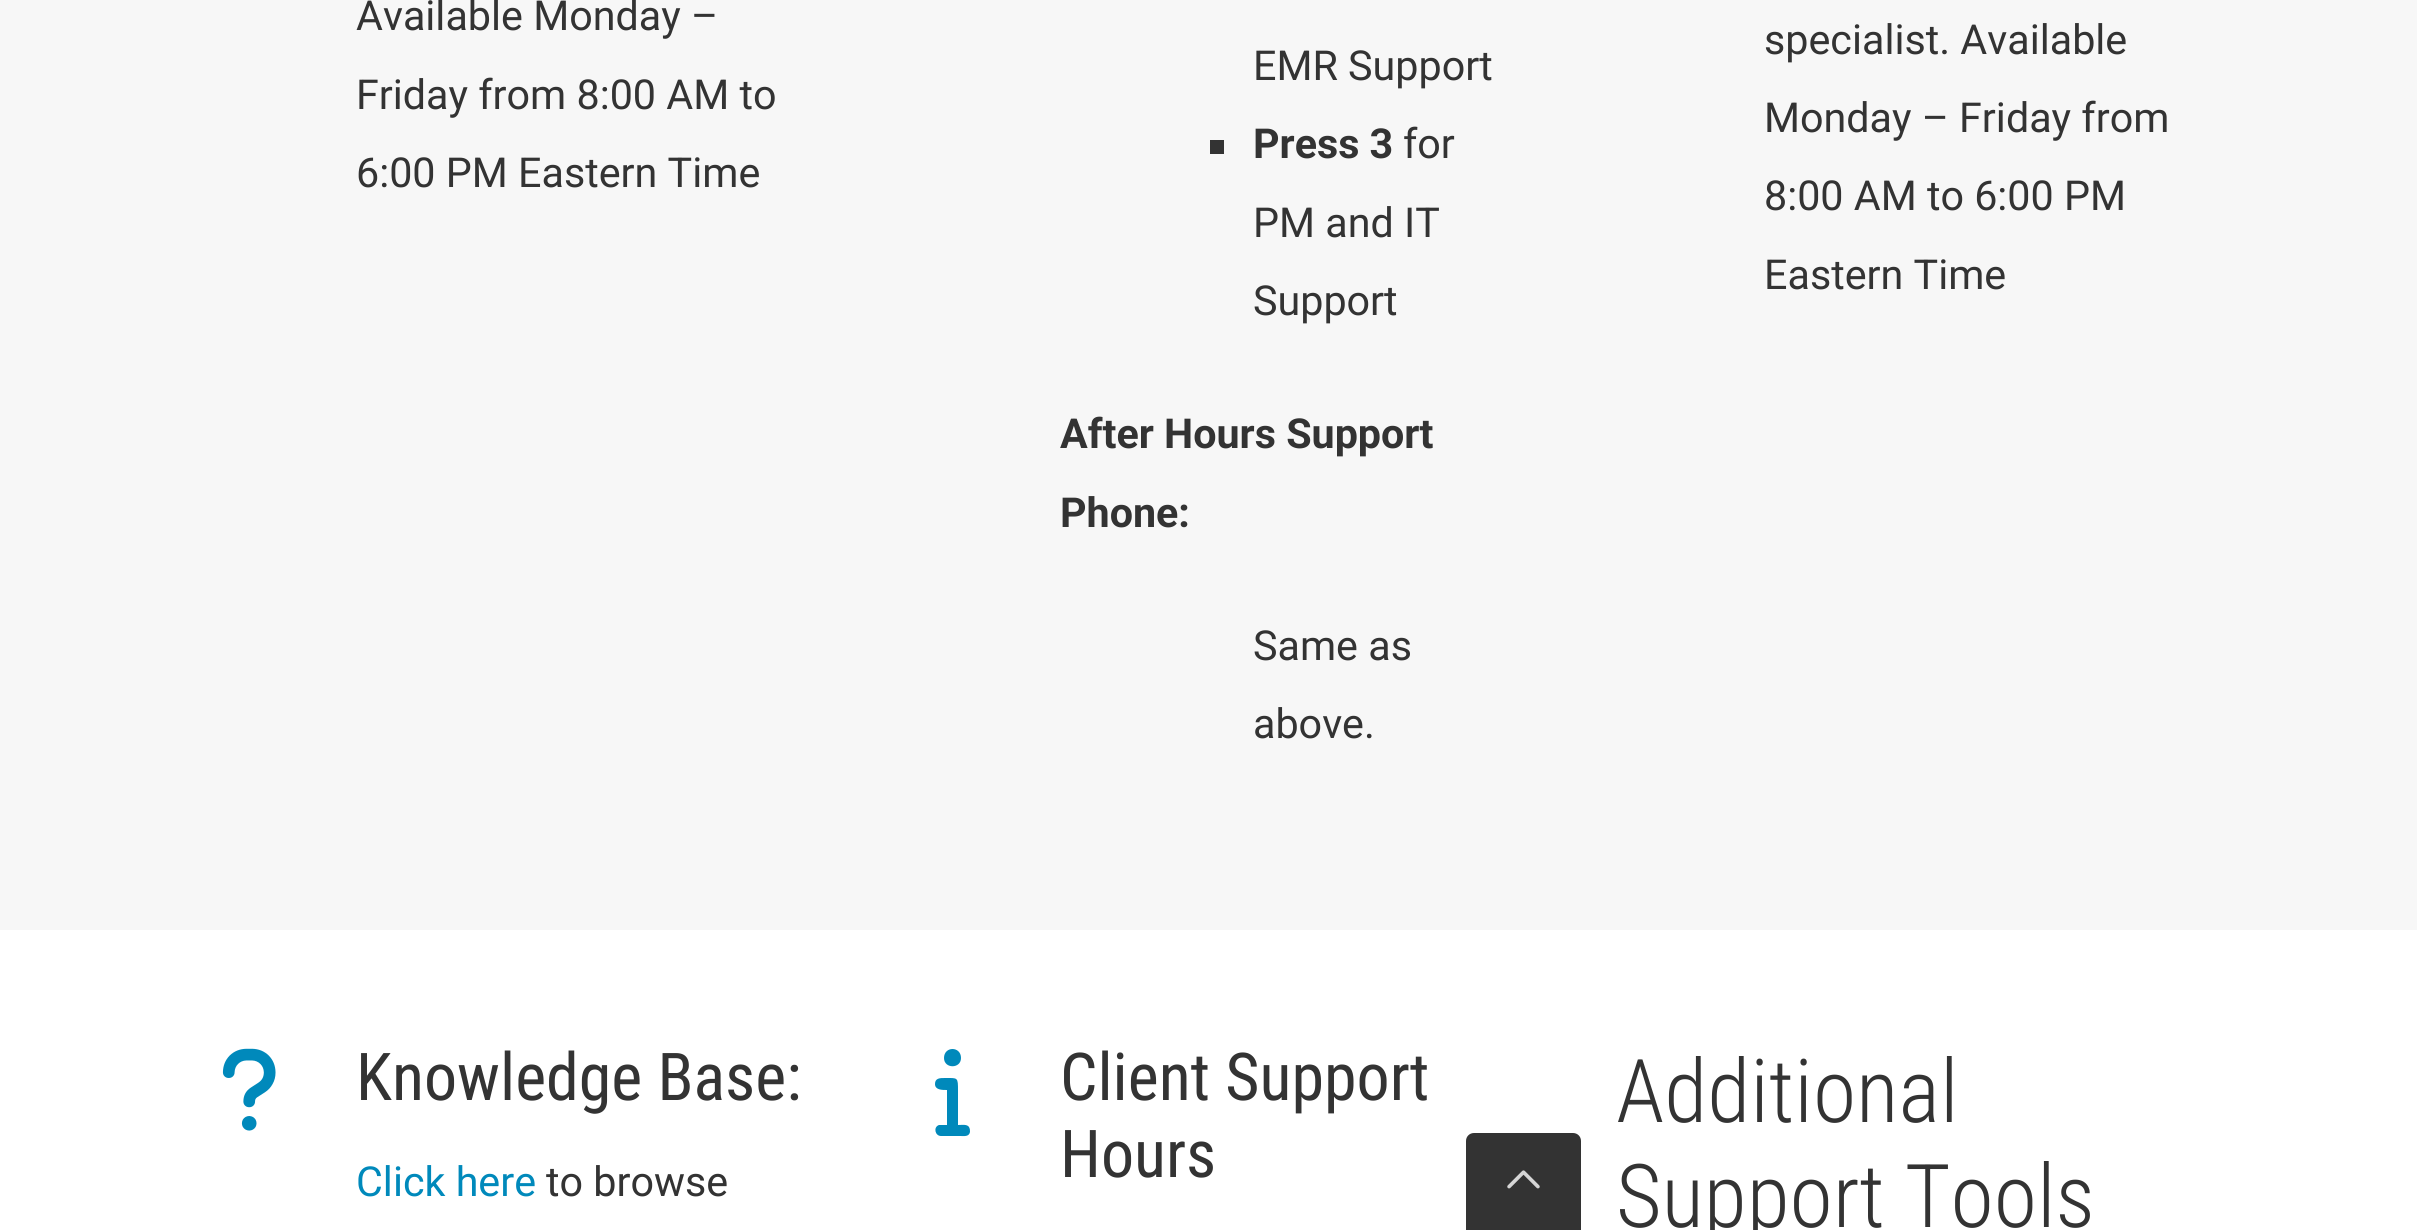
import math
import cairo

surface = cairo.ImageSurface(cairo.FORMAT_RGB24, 2417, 1230)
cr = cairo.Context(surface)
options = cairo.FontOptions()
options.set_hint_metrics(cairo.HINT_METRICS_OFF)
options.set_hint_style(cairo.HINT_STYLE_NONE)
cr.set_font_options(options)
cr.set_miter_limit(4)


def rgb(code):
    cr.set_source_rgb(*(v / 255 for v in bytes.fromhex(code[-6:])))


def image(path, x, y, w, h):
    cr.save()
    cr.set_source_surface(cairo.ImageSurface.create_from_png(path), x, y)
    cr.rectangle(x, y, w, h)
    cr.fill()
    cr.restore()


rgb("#f7f7f7")
cr.paint()
rgb("#333333")
cr.rectangle(1210, 140, 14, 14)
cr.fill()
rgb("#ffffff")
cr.rectangle(0, 930, 2417, 300)
cr.fill()
image("img/1.png", 222, 1048, 54, 83)
rgb("#0089bb")
cr.new_path()
cr.move_to(944, 1058)
cr.curve_to(944, 1046, 961, 1046, 961, 1058)
cr.curve_to(961, 1069, 944, 1069, 944, 1058)
cr.close_path()
cr.move_to(935, 1084)
cr.curve_to(935, 1078, 940, 1078, 945, 1078)
cr.curve_to(958, 1078, 958, 1077, 958, 1091)
cr.line_to(958, 1125)
cr.curve_to(962, 1125, 967, 1124, 969, 1127)
cr.curve_to(970, 1129, 970, 1130, 970, 1132)
cr.curve_to(969, 1137, 964, 1136, 960, 1136)
cr.line_to(941, 1136)
cr.curve_to(935, 1136, 933, 1127, 939, 1125)
cr.line_to(947, 1125)
cr.line_to(947, 1090)
cr.curve_to(942, 1090, 935, 1090, 935, 1084)
cr.close_path()
cr.fill()
rgb("#333333")
cr.new_path()
cr.move_to(1474, 1133)
cr.line_to(1573, 1133)
cr.curve_to(1577.5, 1133, 1581, 1136.5, 1581, 1141)
cr.line_to(1581, 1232)
cr.line_to(1466, 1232)
cr.line_to(1466, 1141)
cr.curve_to(1466, 1136.5, 1469.5, 1133, 1474, 1133)
cr.close_path()
cr.fill()
image("img/2.png", 1507, 1170, 33, 19)
cr.select_font_face("Roboto")
cr.set_font_size(41.25)
for x, y, s in [
    (356, 30, "Available Monday –"),
    (356, 109, "Friday from 8:00 AM to"),
    (356, 187, "6:00 PM Eastern Time"),
    (1253, 80, "EMR Support"),
]:
    cr.move_to(x, y)
    cr.show_text(s)
cr.select_font_face("Roboto", cairo.FONT_SLANT_NORMAL, cairo.FONT_WEIGHT_BOLD)
cr.move_to(1253, 158)
cr.show_text("Press 3")
cr.select_font_face("Roboto")
for x, y, s in [
    (1403, 158, "for"),
    (1253, 237, "PM and IT"),
    (1253, 315, "Support"),
]:
    cr.move_to(x, y)
    cr.show_text(s)
cr.select_font_face("Roboto", cairo.FONT_SLANT_NORMAL, cairo.FONT_WEIGHT_BOLD)
cr.move_to(1060, 448)
cr.show_text("After Hours Support")
cr.move_to(1060, 527)
cr.show_text("Phone:")
cr.select_font_face("Roboto")
for x, y, s in [
    (1253, 660, "Same as"),
    (1253, 738, "above."),
    (1764, 54, "specialist. Available"),
    (1764, 132, "Monday – Friday from"),
    (1764, 210, "8:00 AM to 6:00 PM"),
    (1764, 289, "Eastern Time"),
]:
    cr.move_to(x, y)
    cr.show_text(s)
cr.select_font_face("Roboto Condensed")
cr.set_font_size(66)
cr.move_to(356, 1100)
cr.show_text("Knowledge Base:")
cr.select_font_face("Roboto")
cr.set_font_size(41.25)
rgb("#0089bb")
cr.move_to(356, 1196)
cr.show_text("Click here")
rgb("#333333")
cr.move_to(546, 1196)
cr.show_text("to browse")
cr.select_font_face("Roboto Condensed")
cr.set_font_size(66)
cr.move_to(1060, 1100)
cr.show_text("Client Support")
cr.move_to(1060, 1177)
cr.show_text("Hours")
cr.select_font_face("Roboto Condensed Light")
cr.set_font_size(88)
cr.move_to(1616, 1122)
cr.show_text("Additional")
cr.move_to(1616, 1227)
cr.show_text("Support Tools")
surface.write_to_png("page.png")
